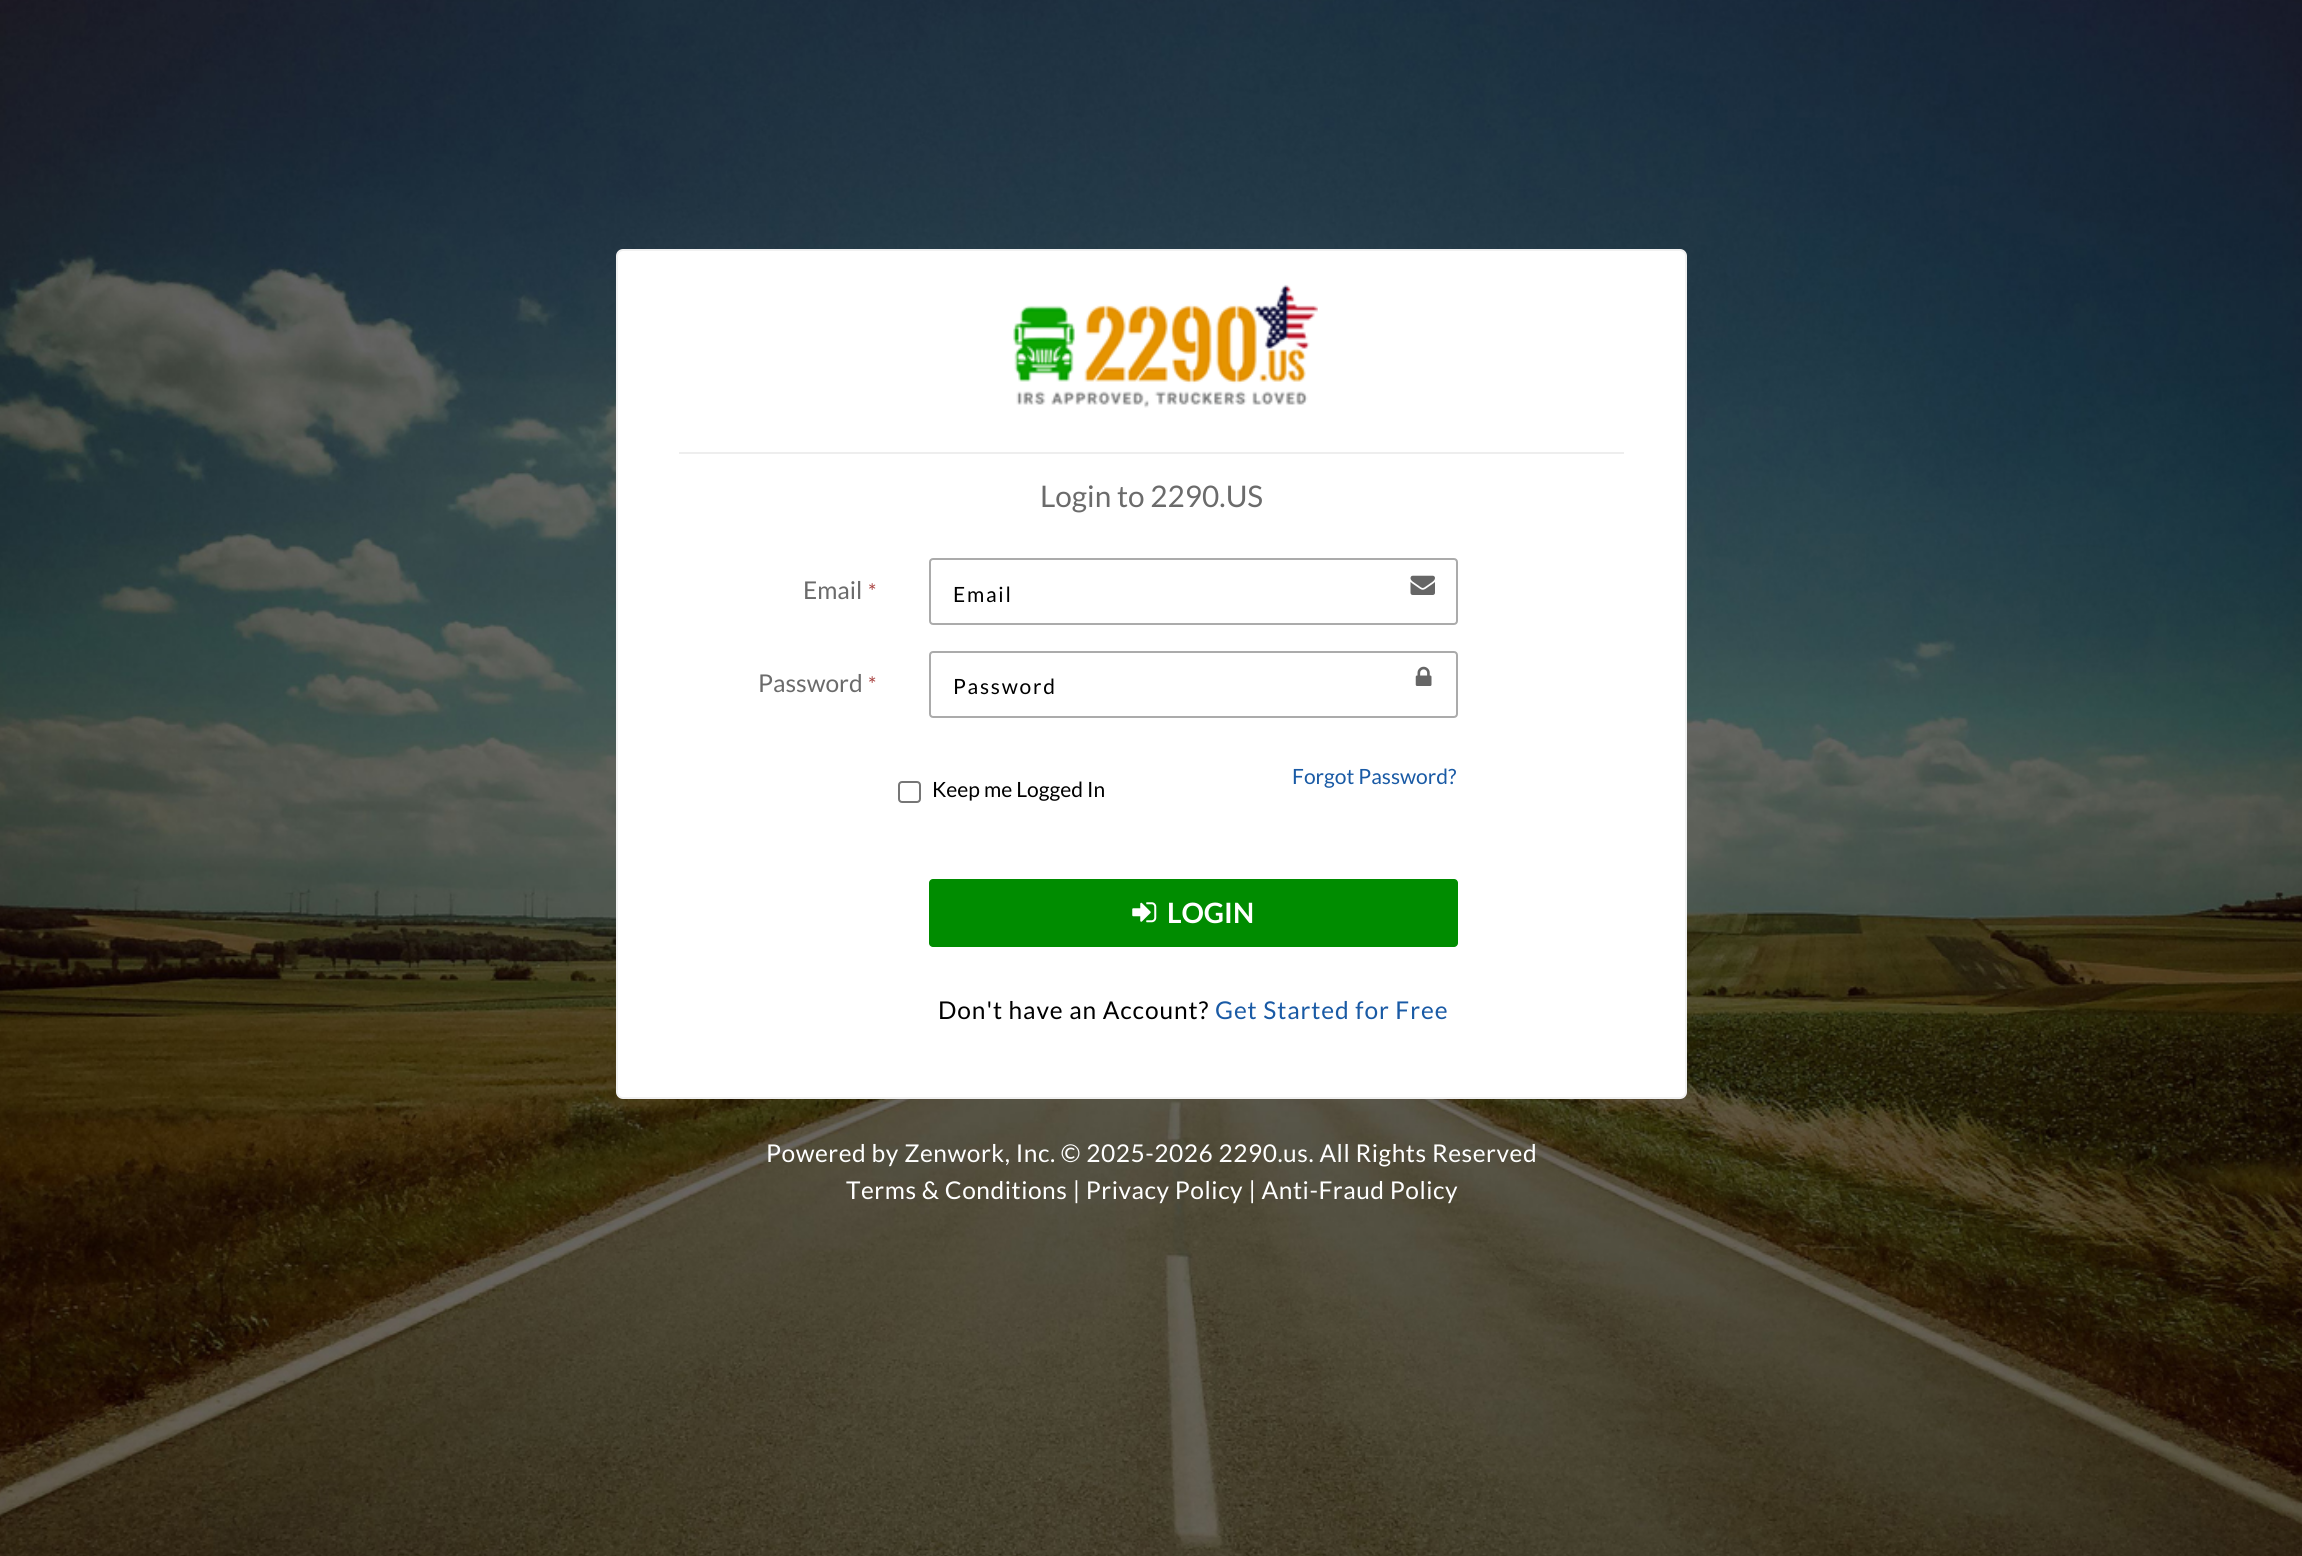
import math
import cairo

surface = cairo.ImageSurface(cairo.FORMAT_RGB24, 2302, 1556)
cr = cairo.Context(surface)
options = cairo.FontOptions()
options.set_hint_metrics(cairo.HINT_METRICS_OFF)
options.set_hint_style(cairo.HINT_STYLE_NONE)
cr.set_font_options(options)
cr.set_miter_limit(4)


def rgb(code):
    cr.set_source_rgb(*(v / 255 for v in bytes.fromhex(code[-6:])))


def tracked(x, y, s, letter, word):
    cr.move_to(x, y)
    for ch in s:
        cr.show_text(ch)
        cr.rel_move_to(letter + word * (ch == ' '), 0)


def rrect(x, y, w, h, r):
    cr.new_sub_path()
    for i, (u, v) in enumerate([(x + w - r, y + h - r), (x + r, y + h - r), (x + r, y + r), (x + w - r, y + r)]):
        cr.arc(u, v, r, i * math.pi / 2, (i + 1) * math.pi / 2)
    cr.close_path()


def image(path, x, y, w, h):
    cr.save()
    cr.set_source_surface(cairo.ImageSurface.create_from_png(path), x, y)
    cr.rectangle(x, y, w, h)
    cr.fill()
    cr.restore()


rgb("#ffffff")
cr.paint()
image("img/1.png", 0, 0, 2302, 1556)
rgb("#ffffff")
rrect(617, 250, 1069, 848, 6)
cr.fill_preserve()
rgb("#f1f1f1")
cr.stroke()
image("img/2.png", 1013, 284, 305, 124)
rgb("#eeeeee")
cr.rectangle(679, 452, 945, 2)
cr.fill()
rrect(930, 559, 527, 65, 3)
rgb("#ababab")
cr.stroke()
image("img/3.png", 1410, 575, 25, 20)
rrect(930, 652, 527, 65, 3)
cr.stroke()
image("img/4.png", 1415, 666, 17, 20)
rrect(899, 782, 21, 20, 3)
rgb("#767676")
cr.stroke()
rgb("#008c00")
rrect(929, 879, 529, 68, 4)
cr.fill()
image("img/5.png", 1132, 902, 25, 21)
cr.select_font_face("Lato")
cr.set_font_size(29.75)
rgb("#6b6b6b")
cr.move_to(1040, 507)
cr.show_text("Login to 2290.US")
cr.set_font_size(24.5)
cr.move_to(803, 599)
cr.show_text("Email")
cr.set_font_size(21)
rgb("#a94442")
cr.move_to(868, 599)
cr.show_text("*")
rgb("#000000")
tracked(953, 602, "Email", 1.75, 0)
cr.set_font_size(24.5)
rgb("#6b6b6b")
cr.move_to(758, 692)
cr.show_text("Password")
cr.set_font_size(21)
rgb("#a94442")
cr.move_to(868, 692)
cr.show_text("*")
rgb("#000000")
tracked(953, 694, "Password", 1.75, 0)
rgb("#195aa5")
cr.move_to(1292, 784)
cr.show_text("Forgot Password?")
rgb("#000000")
cr.move_to(932, 797)
cr.show_text("Keep me Logged In")
cr.select_font_face("Lato", cairo.FONT_SLANT_NORMAL, cairo.FONT_WEIGHT_BOLD)
cr.set_font_size(28)
rgb("#ffffff")
cr.move_to(1167, 923)
cr.show_text("LOGIN")
cr.select_font_face("Lato")
cr.set_font_size(24.5)
rgb("#000000")
tracked(938, 1019, "Don't have an Account?", 0.9, 0)
rgb("#195aa5")
tracked(1215, 1019, "Get Started for Free", 0.9, 0)
rgb("#ffffff")
tracked(766, 1162, "Powered by Zenwork, Inc. © 2025-2026 2290.us. All Rights Reserved", 0.53, 0)
tracked(846, 1199, "Terms & Conditions | Privacy Policy | Anti-Fraud Policy", 0.53, 0)
surface.write_to_png("page.png")
